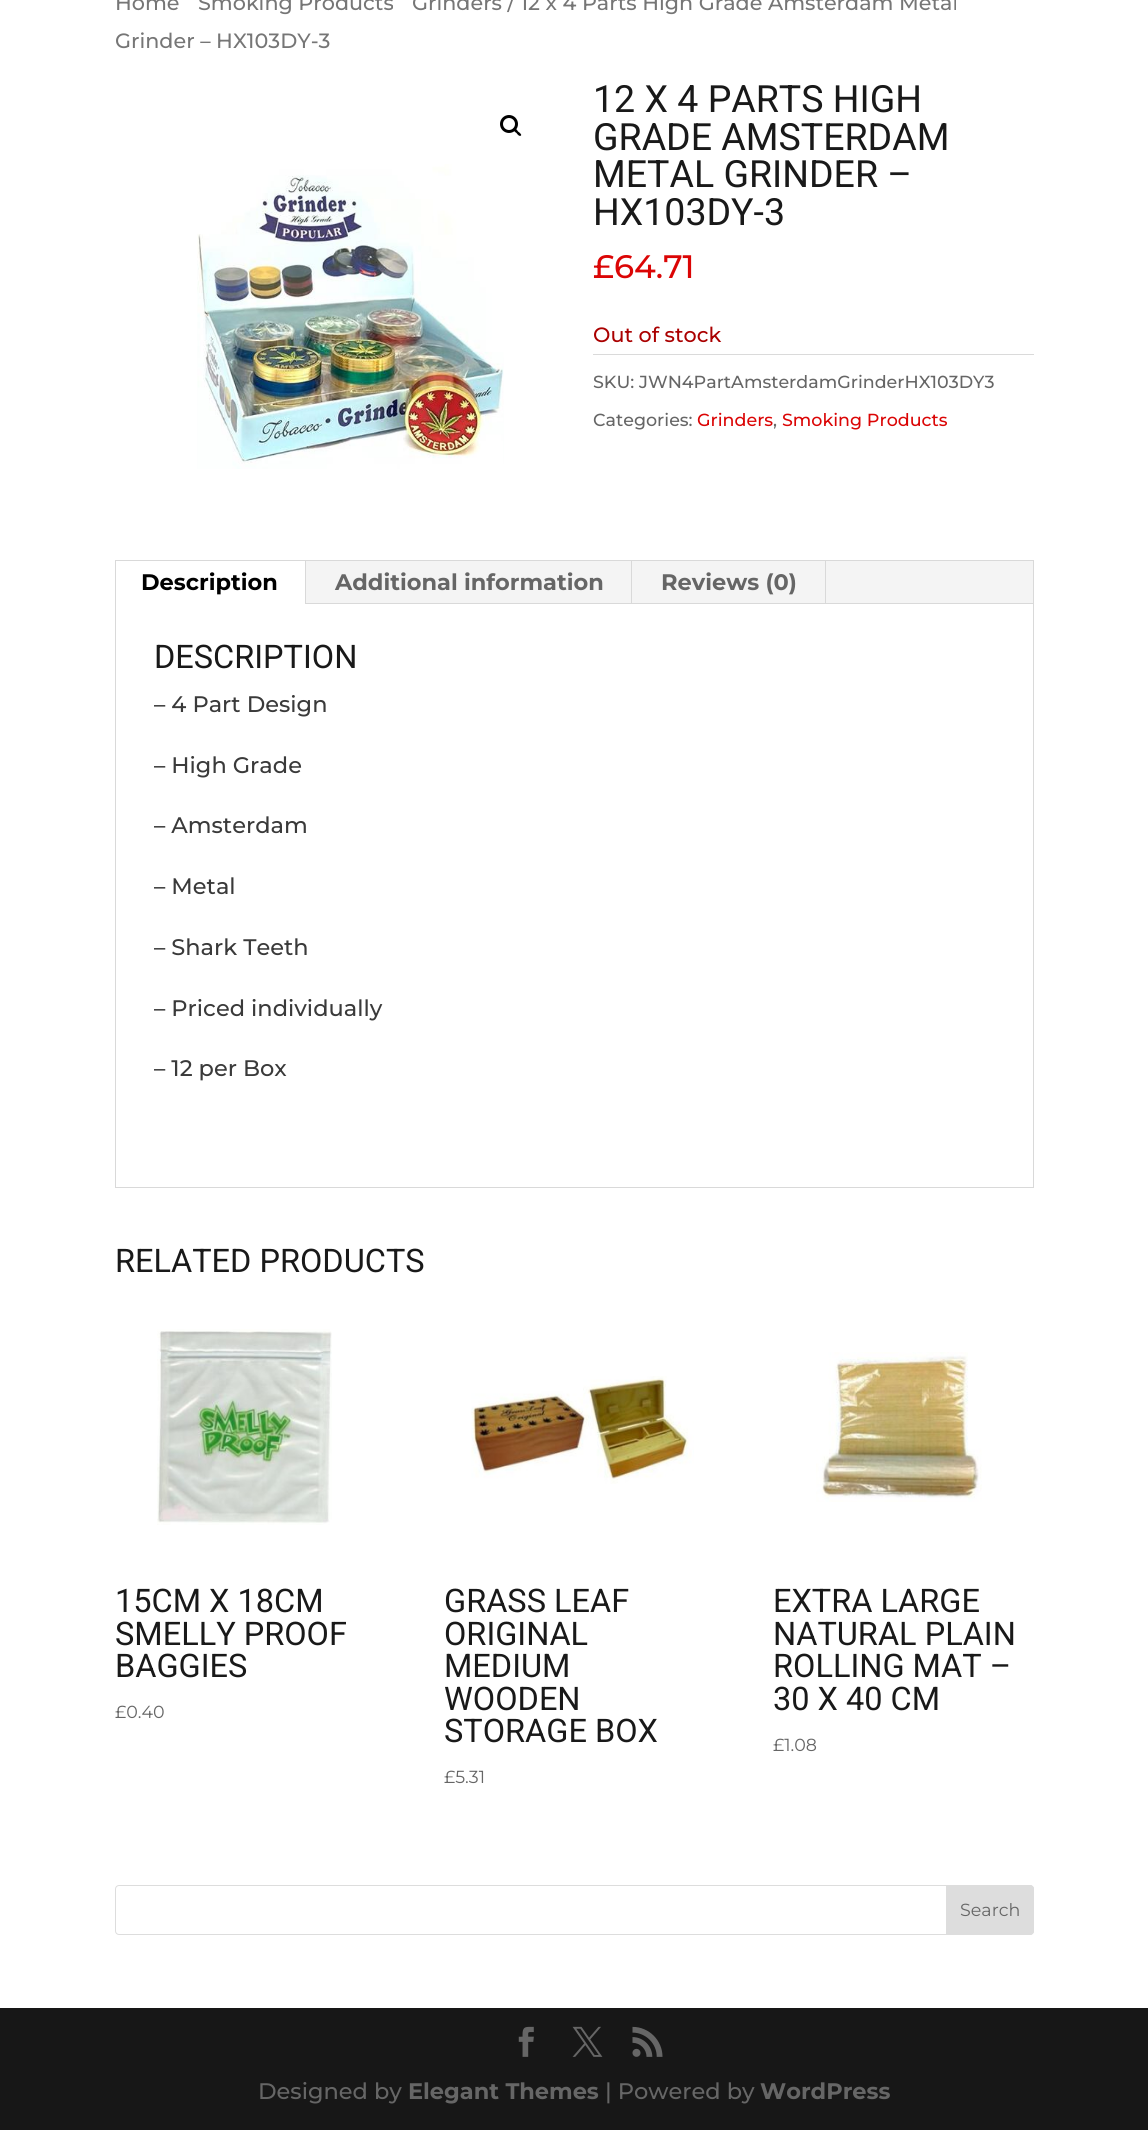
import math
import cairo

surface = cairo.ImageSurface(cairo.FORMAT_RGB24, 1148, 2130)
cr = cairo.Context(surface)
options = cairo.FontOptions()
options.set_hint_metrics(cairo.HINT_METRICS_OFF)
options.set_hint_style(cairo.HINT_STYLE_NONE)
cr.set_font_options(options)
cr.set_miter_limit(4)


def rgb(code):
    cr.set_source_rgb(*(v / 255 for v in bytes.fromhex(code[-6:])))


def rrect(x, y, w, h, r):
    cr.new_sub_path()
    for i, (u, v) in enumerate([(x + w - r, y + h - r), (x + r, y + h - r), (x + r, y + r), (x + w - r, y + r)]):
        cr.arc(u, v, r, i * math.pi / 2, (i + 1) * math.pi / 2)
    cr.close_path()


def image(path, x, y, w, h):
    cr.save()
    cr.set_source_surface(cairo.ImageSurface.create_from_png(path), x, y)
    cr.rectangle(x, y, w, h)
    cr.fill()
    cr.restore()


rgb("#ffffff")
cr.paint()
cr.arc(509, 124, 7.5, 0, 2 * math.pi)
rgb("#000000")
cr.set_line_width(3)
cr.stroke()
cr.new_path()
cr.move_to(513.5, 128.5)
cr.curve_to(515, 127, 517.5, 130.5, 518, 131.5)
cr.curve_to(519, 132, 522, 134.5, 521, 135.5)
cr.curve_to(519.5, 137, 517, 134, 516.5, 133)
cr.curve_to(515.5, 132.5, 512.5, 130, 513.5, 128.5)
cr.close_path()
cr.fill()
image("img/1.png", 197, 164, 307, 305)
rgb("#dadada")
cr.rectangle(593, 354, 441, 1)
cr.fill()
cr.rectangle(115.5, 560.5, 918, 627)
rgb("#d9d9d9")
cr.set_line_width(1)
cr.stroke()
for x, y, w, h, color in [
    (306, 561, 727, 42, "#f4f4f4"),
    (305, 561, 1, 43, "#d9d9d9"),
    (631, 561, 1, 43, "#d9d9d9"),
    (825, 561, 1, 43, "#d9d9d9"),
    (306, 603, 727, 1, "#d9d9d9"),
]:
    rgb(color)
    cr.rectangle(x, y, w, h)
    cr.fill()
image("img/2.png", 157, 1329, 175, 196)
image("img/3.png", 471, 1376, 223, 108)
image("img/4.png", 816, 1352, 166, 150)
rrect(115.5, 1885.5, 918, 49, 3.5)
rgb("#dddddd")
cr.stroke()
cr.new_path()
cr.move_to(946.5, 1885.5)
cr.line_to(1030, 1885.5)
cr.curve_to(1032, 1885.5, 1033.5, 1887, 1033.5, 1889)
cr.line_to(1033.5, 1931)
cr.curve_to(1033.5, 1933, 1032, 1934.5, 1030, 1934.5)
cr.line_to(946.5, 1934.5)
cr.close_path()
cr.fill_preserve()
cr.stroke()
rgb("#171717")
cr.rectangle(0, 2008, 1148, 122)
cr.fill()
image("img/5.png", 518, 2026, 16, 31)
image("img/6.png", 572, 2026, 31, 31)
image("img/7.png", 632, 2026, 31, 31)
cr.select_font_face("Montserrat Thin")
cr.set_font_size(20.7)
rgb("#767676")
for x, y, s in [
    (115, 10, "Home"),
    (198, 10, "Smoking Products"),
    (412, 10, "Grinders / 12 x 4 Parts High Grade Amsterdam Metal"),
    (115, 48, "Grinder – HX103DY-3"),
]:
    cr.move_to(x, y)
    cr.show_text(s)
cr.select_font_face("Roboto")
cr.set_font_size(37.5)
rgb("#191919")
for x, y, s in [
    (593, 112, "12 X 4 PARTS HIGH"),
    (593, 150, "GRADE AMSTERDAM"),
    (593, 187, "METAL GRINDER –"),
    (593, 225, "HX103DY-3"),
]:
    cr.move_to(x, y)
    cr.show_text(s)
cr.select_font_face("Montserrat Thin")
cr.set_font_size(32.5)
rgb("#db0505")
cr.move_to(593, 278)
cr.show_text("£64.71")
cr.set_font_size(20.7)
rgb("#aa0000")
cr.move_to(593, 342)
cr.show_text("Out of stock")
cr.set_font_size(17.5)
rgb("#666666")
cr.move_to(593, 388)
cr.show_text("SKU: JWN4PartAmsterdamGrinderHX103DY3")
cr.move_to(593, 426)
cr.show_text("Categories:")
rgb("#db0505")
cr.move_to(697, 426)
cr.show_text("Grinders")
rgb("#666666")
cr.move_to(773, 426)
cr.show_text(",")
rgb("#db0505")
cr.move_to(782, 426)
cr.show_text("Smoking Products")
cr.select_font_face("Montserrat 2 Thin")
cr.set_font_size(22.5)
rgb("#000000")
cr.move_to(141, 590)
cr.show_text("Description")
rgb("#666666")
cr.move_to(335, 590)
cr.show_text("Additional information")
cr.move_to(661, 590)
cr.show_text("Reviews (0)")
cr.select_font_face("Roboto")
cr.set_font_size(32.5)
rgb("#191919")
cr.move_to(154, 668)
cr.show_text("DESCRIPTION")
cr.select_font_face("Montserrat Thin")
cr.set_font_size(22.5)
rgb("#3a3a3a")
for x, y, s in [
    (154, 712, "– 4 Part Design"),
    (154, 773, "– High Grade"),
    (154, 833, "– Amsterdam"),
    (154, 894, "– Metal"),
    (154, 955, "– Shark Teeth"),
    (154, 1016, "– Priced individually"),
    (154, 1076, "– 12 per Box"),
]:
    cr.move_to(x, y)
    cr.show_text(s)
cr.select_font_face("Roboto")
cr.set_font_size(32.5)
rgb("#191919")
for x, y, s in [
    (115, 1272, "RELATED PRODUCTS"),
    (115, 1612, "15CM X 18CM"),
    (115, 1645, "SMELLY PROOF"),
    (115, 1677, "BAGGIES"),
]:
    cr.move_to(x, y)
    cr.show_text(s)
cr.select_font_face("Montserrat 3 Thin")
cr.set_font_size(17.5)
rgb("#666666")
cr.move_to(115, 1718)
cr.show_text("£0.40")
cr.select_font_face("Roboto")
cr.set_font_size(32.5)
rgb("#191919")
for x, y, s in [
    (444, 1612, "GRASS LEAF"),
    (444, 1645, "ORIGINAL"),
    (444, 1677, "MEDIUM"),
    (444, 1710, "WOODEN"),
    (444, 1742, "STORAGE BOX"),
]:
    cr.move_to(x, y)
    cr.show_text(s)
cr.select_font_face("Montserrat 3 Thin")
cr.set_font_size(17.5)
rgb("#666666")
cr.move_to(444, 1783)
cr.show_text("£5.31")
cr.select_font_face("Roboto")
cr.set_font_size(32.5)
rgb("#191919")
for x, y, s in [
    (773, 1612, "EXTRA LARGE"),
    (773, 1645, "NATURAL PLAIN"),
    (773, 1677, "ROLLING MAT –"),
    (773, 1710, "30 X 40 CM"),
]:
    cr.move_to(x, y)
    cr.show_text(s)
cr.select_font_face("Montserrat 3 Thin")
cr.set_font_size(17.5)
rgb("#666666")
cr.move_to(773, 1751)
cr.show_text("£1.08")
cr.move_to(960, 1916)
cr.show_text("Search")
cr.select_font_face("Montserrat Thin")
cr.set_font_size(22.5)
cr.move_to(258, 2099)
cr.show_text("Designed by")
cr.select_font_face("Montserrat 2 Thin")
cr.move_to(408, 2099)
cr.show_text("Elegant Themes")
cr.select_font_face("Montserrat Thin")
cr.move_to(605, 2099)
cr.show_text("| Powered by")
cr.select_font_face("Montserrat 2 Thin")
cr.move_to(760, 2099)
cr.show_text("WordPress")
surface.write_to_png("page.png")
